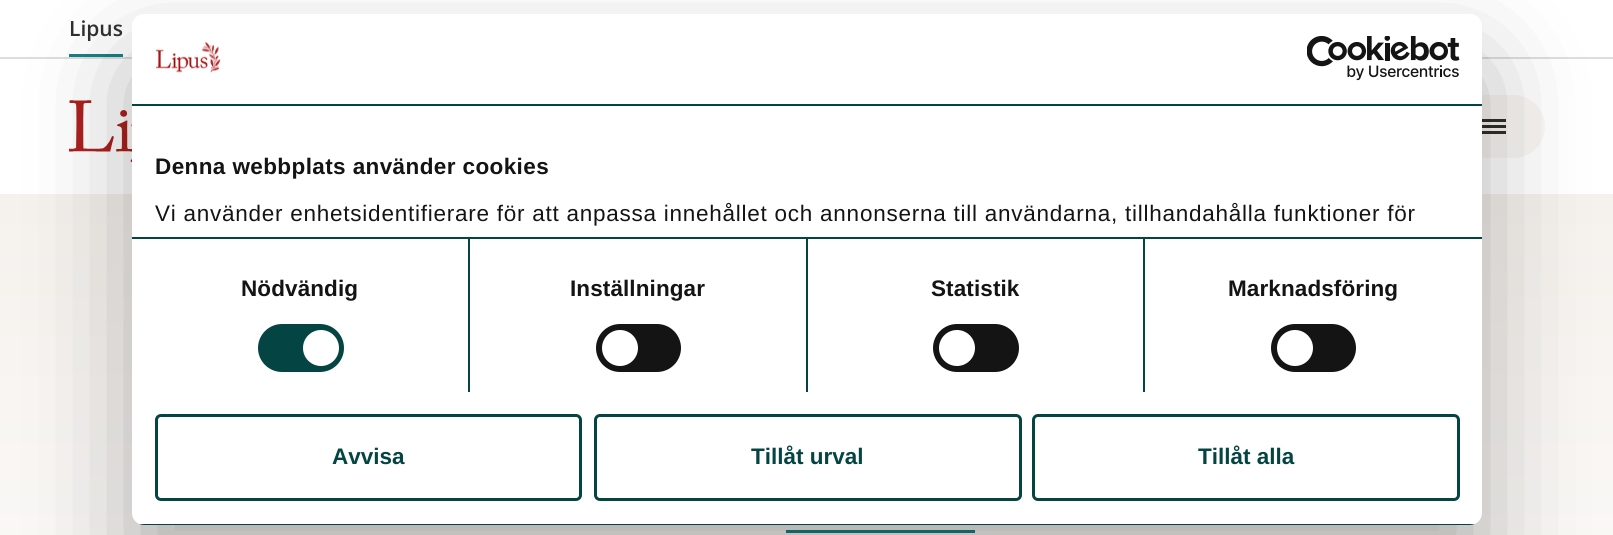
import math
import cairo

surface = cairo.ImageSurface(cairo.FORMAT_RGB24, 1613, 535)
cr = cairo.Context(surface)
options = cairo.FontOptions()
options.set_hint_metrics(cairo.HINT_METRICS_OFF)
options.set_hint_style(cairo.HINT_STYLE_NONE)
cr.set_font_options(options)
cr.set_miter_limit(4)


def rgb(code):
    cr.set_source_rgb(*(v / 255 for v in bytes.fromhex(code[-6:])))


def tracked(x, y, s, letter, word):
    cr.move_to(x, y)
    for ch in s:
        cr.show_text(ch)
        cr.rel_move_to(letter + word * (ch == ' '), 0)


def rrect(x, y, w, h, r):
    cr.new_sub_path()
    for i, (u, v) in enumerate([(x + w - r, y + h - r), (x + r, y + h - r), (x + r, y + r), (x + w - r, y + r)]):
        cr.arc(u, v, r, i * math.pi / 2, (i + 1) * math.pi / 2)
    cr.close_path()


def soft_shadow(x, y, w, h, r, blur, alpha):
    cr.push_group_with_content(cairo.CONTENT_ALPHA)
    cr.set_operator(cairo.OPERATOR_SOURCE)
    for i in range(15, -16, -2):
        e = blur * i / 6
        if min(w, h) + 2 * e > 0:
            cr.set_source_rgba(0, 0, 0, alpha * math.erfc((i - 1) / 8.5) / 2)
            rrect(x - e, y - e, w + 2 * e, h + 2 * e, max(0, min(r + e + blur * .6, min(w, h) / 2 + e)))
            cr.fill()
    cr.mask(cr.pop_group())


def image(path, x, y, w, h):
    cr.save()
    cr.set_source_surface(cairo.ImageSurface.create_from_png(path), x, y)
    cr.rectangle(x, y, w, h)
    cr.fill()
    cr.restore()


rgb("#ffffff")
cr.paint()
rgb("#dddddd")
cr.rectangle(0, 57, 1613, 2)
cr.fill()
rgb("#158287")
cr.rectangle(69, 54, 54, 3)
cr.fill()
image("img/1.png", 69, 100, 63, 62)
rgb("#f9f6f3")
rrect(1376, 95, 169, 63, 31.5)
cr.fill()
for x, y, w, h, color in [
    (1482, 119, 24, 3, "#2f2f2c"),
    (1482, 125, 24, 3, "#2f2f2c"),
    (1482, 131, 24, 3, "#2f2f2c"),
]:
    rgb(color)
    cr.rectangle(x, y, w, h)
    cr.fill()
gradient = cairo.LinearGradient(807, 193, 807, 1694)
gradient.add_color_stop_rgba(0, 0.961, 0.945, 0.929, 1)
gradient.add_color_stop_rgba(0.48, 1, 1, 1, 1)
cr.set_source(gradient)
cr.rectangle(0, 194, 1613, 341)
cr.fill()
rgb("#158287")
cr.rectangle(786, 530, 189, 3)
cr.fill()
rgb("#000000")
soft_shadow(132, 62, 1350, 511, 12, 51, 0.3)
rgb("#ffffff")
rrect(132, 14, 1350, 511, 12)
cr.fill()
rgb("#044544")
cr.rectangle(132, 104, 1350, 2)
cr.fill()
image("img/2.png", 155, 42, 66, 31)
image("img/3.png", 1307, 36, 153, 45)
cr.rectangle(132, 237, 1350, 2)
cr.fill()
cr.rectangle(468, 239, 2, 153)
cr.fill()
rrect(258, 324, 86, 48, 24)
cr.fill()
rgb("#ffffff")
cr.arc(321, 348, 18, 0, 2 * math.pi)
cr.fill()
rgb("#044544")
cr.rectangle(806, 239, 2, 153)
cr.fill()
rgb("#141414")
rrect(596, 324, 85, 48, 24)
cr.fill()
rgb("#ffffff")
cr.arc(620, 348, 18, 0, 2 * math.pi)
cr.fill()
rgb("#044544")
cr.rectangle(1143, 239, 2, 153)
cr.fill()
rgb("#141414")
rrect(933, 324, 86, 48, 24)
cr.fill()
rgb("#ffffff")
cr.arc(957, 348, 18, 0, 2 * math.pi)
cr.fill()
rgb("#141414")
rrect(1271, 324, 85, 48, 24)
cr.fill()
rgb("#ffffff")
cr.arc(1295, 348, 18, 0, 2 * math.pi)
cr.fill()
cr.save()
rrect(132, 14, 1350, 511, 12)
cr.clip()
rgb("#044544")
cr.rectangle(132, 524, 1350, 1)
cr.fill()
cr.restore()
rrect(156.5, 415.5, 424, 84, 4.5)
rgb("#044544")
cr.set_line_width(3)
cr.stroke()
rrect(595.5, 415.5, 425, 84, 4.5)
cr.stroke()
rrect(1033.5, 415.5, 425, 84, 4.5)
cr.stroke()
cr.select_font_face("Open Sans SemiBold")
cr.set_font_size(21)
rgb("#2f2f2c")
cr.move_to(69, 36)
cr.show_text("Lipus")
cr.select_font_face("Liberation Sans", cairo.FONT_SLANT_NORMAL, cairo.FONT_WEIGHT_BOLD)
cr.set_font_size(22.5)
rgb("#141414")
tracked(155, 174, "Denna webbplats använder cookies", 0.4, 0)
cr.select_font_face("Liberation Sans")
tracked(155, 221, "Vi använder enhetsidentifierare för att anpassa innehållet och annonserna till användarna, tillhandahålla funktioner för", 0.75, 0)
cr.select_font_face("Liberation Sans", cairo.FONT_SLANT_NORMAL, cairo.FONT_WEIGHT_BOLD)
for x, y, s in [
    (241, 296, "Nödvändig"),
    (570, 296, "Inställningar"),
    (931, 296, "Statistik"),
    (1228, 296, "Marknadsföring"),
]:
    tracked(x, y, s, 0.1, 0)
rgb("#044544")
for x, y, s in [
    (332, 464, "Avvisa"),
    (751, 464, "Tillåt urval"),
    (1198, 464, "Tillåt alla"),
]:
    cr.move_to(x, y)
    cr.show_text(s)
surface.write_to_png("page.png")
